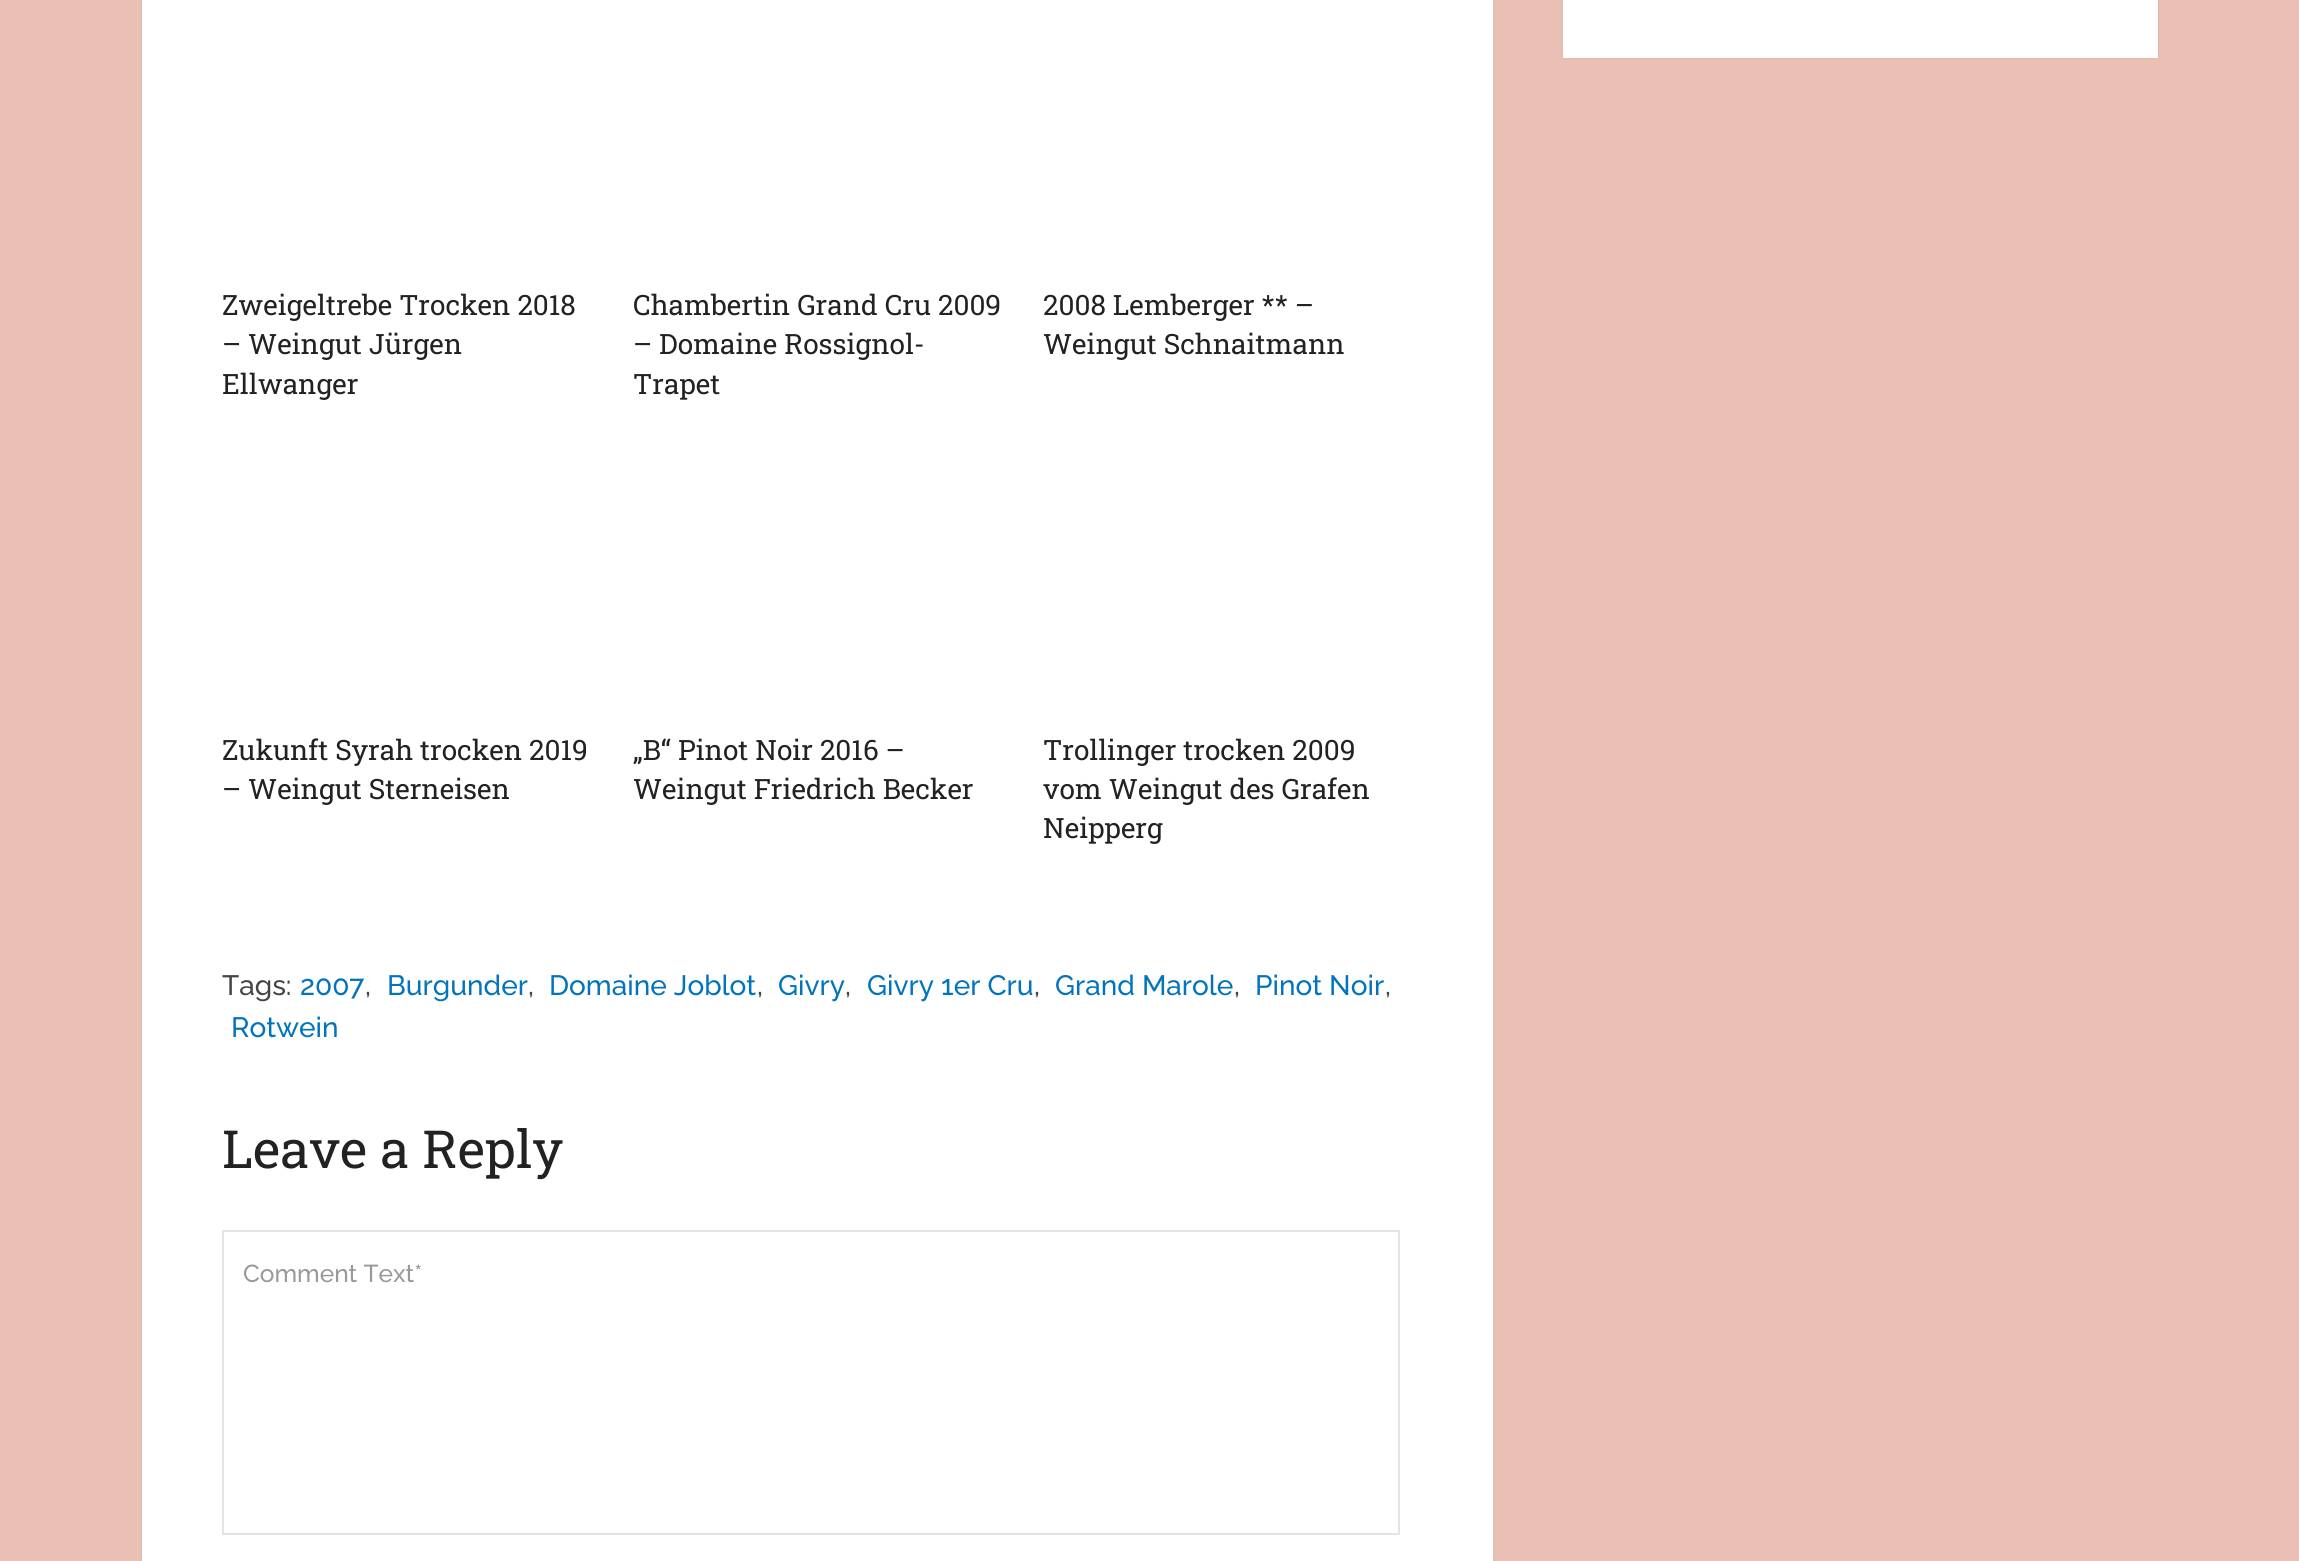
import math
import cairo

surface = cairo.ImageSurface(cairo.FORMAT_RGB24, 2299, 1561)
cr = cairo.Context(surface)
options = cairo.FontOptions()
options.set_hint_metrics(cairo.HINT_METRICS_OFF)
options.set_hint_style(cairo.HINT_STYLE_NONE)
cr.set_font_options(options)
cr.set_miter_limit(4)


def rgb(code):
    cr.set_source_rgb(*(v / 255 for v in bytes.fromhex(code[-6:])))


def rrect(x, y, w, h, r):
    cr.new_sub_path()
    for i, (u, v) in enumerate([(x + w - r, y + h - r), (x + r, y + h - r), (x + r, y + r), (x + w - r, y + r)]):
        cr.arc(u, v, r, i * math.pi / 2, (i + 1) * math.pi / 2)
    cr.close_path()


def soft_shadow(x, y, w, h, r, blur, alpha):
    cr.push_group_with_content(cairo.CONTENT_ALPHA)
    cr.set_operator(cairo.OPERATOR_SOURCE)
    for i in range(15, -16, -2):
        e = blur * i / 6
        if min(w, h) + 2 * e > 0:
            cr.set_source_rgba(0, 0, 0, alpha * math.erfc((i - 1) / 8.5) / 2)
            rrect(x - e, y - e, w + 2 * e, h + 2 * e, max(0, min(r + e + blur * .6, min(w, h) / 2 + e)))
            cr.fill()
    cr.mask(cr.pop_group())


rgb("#eabfb4")
cr.paint()
rgb("#323232")
soft_shadow(1563, -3, 595, 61, 0, 1, 0.1)
rgb("#ffffff")
cr.rectangle(1563, 0, 595, 58)
cr.fill()
rgb("#323232")
soft_shadow(142, -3, 1351, 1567, 0, 1, 0.1)
rgb("#ffffff")
cr.rectangle(142, 0, 1351, 1561)
cr.fill()
cr.rectangle(223, 1231, 1176, 303)
rgb("#e4e4e4")
cr.stroke()
cr.select_font_face("Roboto Slab")
cr.set_font_size(28)
rgb("#222222")
for x, y, s in [
    (222, 315, "Zweigeltrebe Trocken 2018"),
    (222, 354, "– Weingut Jürgen"),
    (222, 394, "Ellwanger"),
    (633, 315, "Chambertin Grand Cru 2009"),
    (633, 354, "– Domaine Rossignol-"),
    (633, 394, "Trapet"),
    (1043, 315, "2008 Lemberger ** –"),
    (1043, 354, "Weingut Schnaitmann"),
    (222, 760, "Zukunft Syrah trocken 2019"),
    (222, 799, "– Weingut Sterneisen"),
    (633, 760, "„B“ Pinot Noir 2016 –"),
    (633, 799, "Weingut Friedrich Becker"),
    (1043, 760, "Trollinger trocken 2009"),
    (1043, 799, "vom Weingut des Grafen"),
    (1043, 838, "Neipperg"),
]:
    cr.move_to(x, y)
    cr.show_text(s)
cr.select_font_face("Raleway Medium")
rgb("#444444")
cr.move_to(222, 995)
cr.show_text("Tags:")
rgb("#0274be")
cr.move_to(300, 995)
cr.show_text("2007")
rgb("#444444")
cr.move_to(365, 995)
cr.show_text(",")
rgb("#0274be")
cr.move_to(387, 995)
cr.show_text("Burgunder")
rgb("#444444")
cr.move_to(528, 995)
cr.show_text(",")
rgb("#0274be")
cr.move_to(549, 995)
cr.show_text("Domaine Joblot")
rgb("#444444")
cr.move_to(757, 995)
cr.show_text(",")
rgb("#0274be")
cr.move_to(778, 995)
cr.show_text("Givry")
rgb("#444444")
cr.move_to(845, 995)
cr.show_text(",")
rgb("#0274be")
cr.move_to(867, 995)
cr.show_text("Givry 1er Cru")
rgb("#444444")
cr.move_to(1034, 995)
cr.show_text(",")
rgb("#0274be")
cr.move_to(1055, 995)
cr.show_text("Grand Marole")
rgb("#444444")
cr.move_to(1234, 995)
cr.show_text(",")
rgb("#0274be")
cr.move_to(1255, 995)
cr.show_text("Pinot Noir")
rgb("#444444")
cr.move_to(1385, 995)
cr.show_text(",")
rgb("#0274be")
cr.move_to(231, 1037)
cr.show_text("Rotwein")
cr.select_font_face("Roboto Slab")
cr.set_font_size(52.5)
rgb("#222222")
cr.move_to(222, 1168)
cr.show_text("Leave a Reply")
cr.select_font_face("Raleway Medium")
cr.set_font_size(24.5)
rgb("#999999")
cr.move_to(243, 1282)
cr.show_text("Comment Text*")
surface.write_to_png("page.png")
